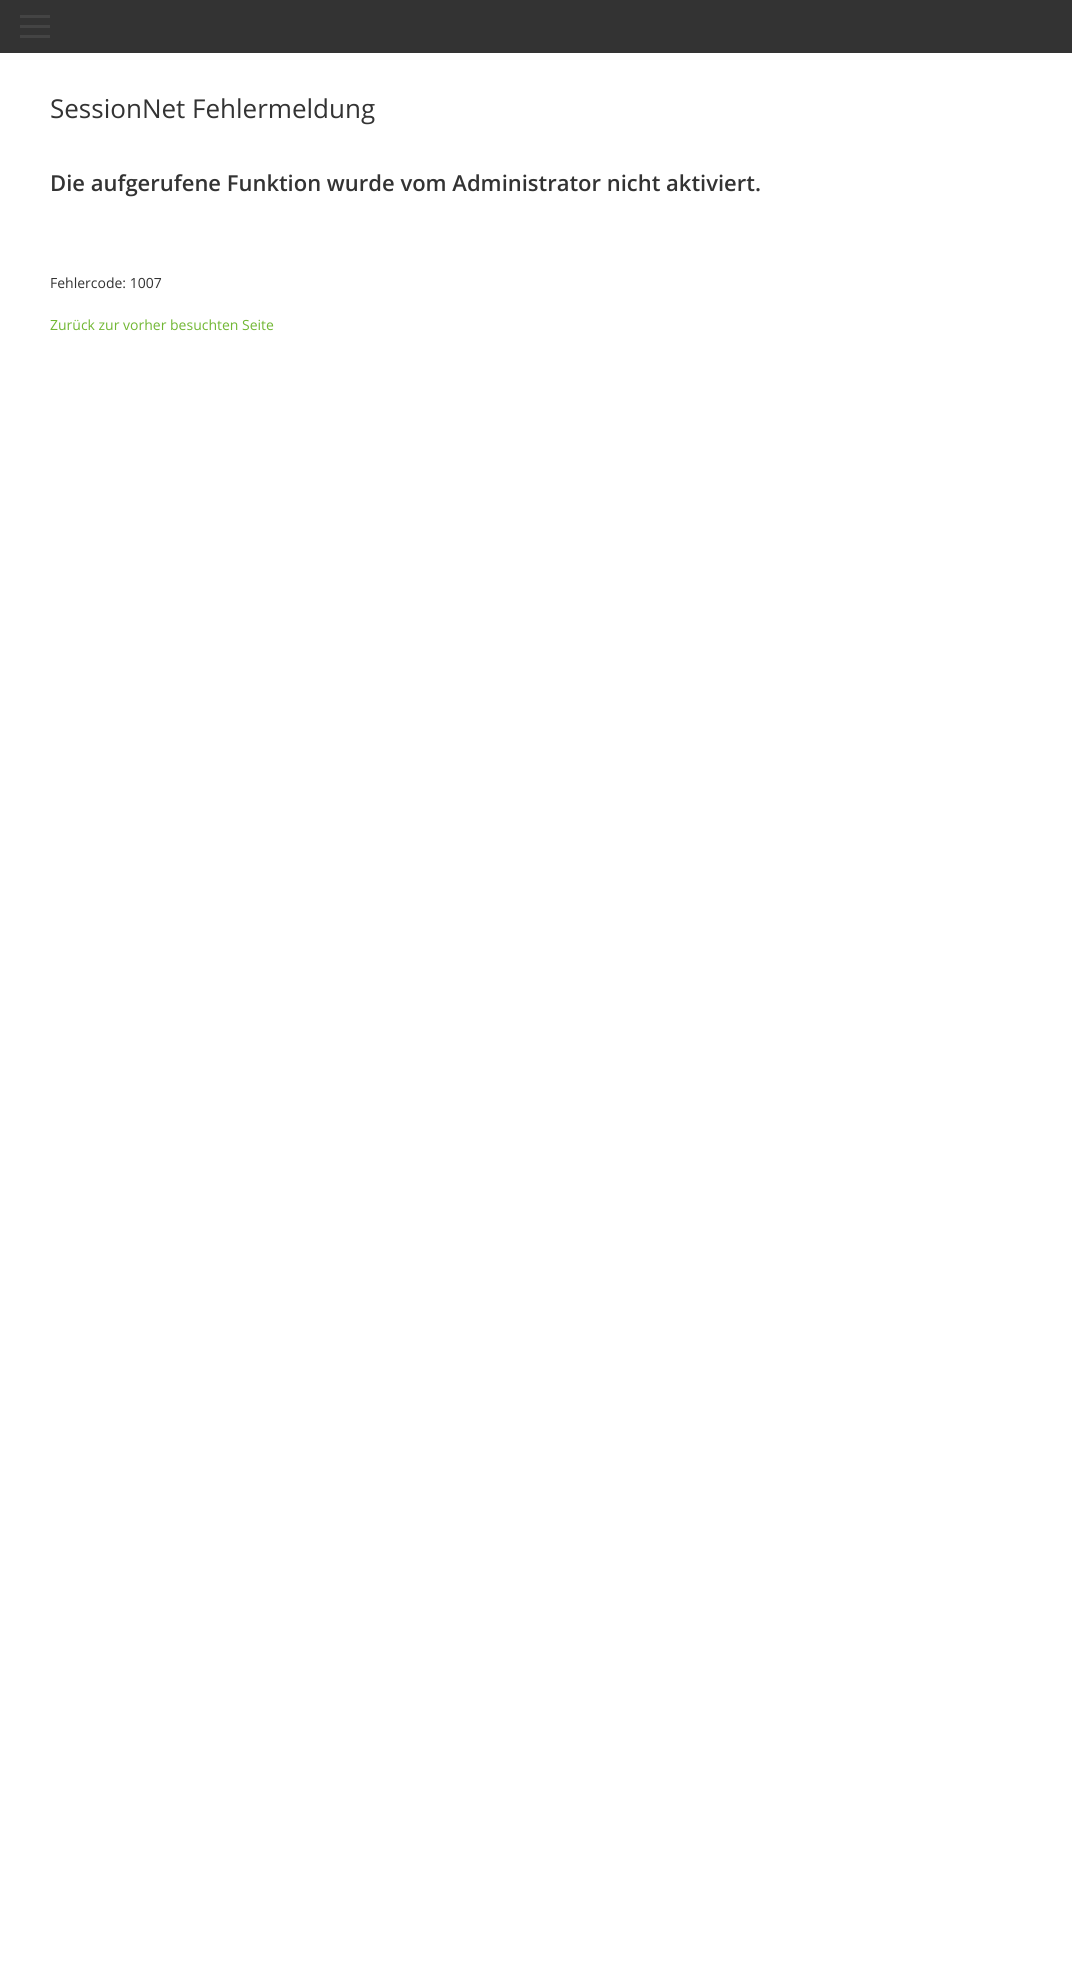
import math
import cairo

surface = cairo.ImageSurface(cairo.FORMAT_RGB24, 1072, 1972)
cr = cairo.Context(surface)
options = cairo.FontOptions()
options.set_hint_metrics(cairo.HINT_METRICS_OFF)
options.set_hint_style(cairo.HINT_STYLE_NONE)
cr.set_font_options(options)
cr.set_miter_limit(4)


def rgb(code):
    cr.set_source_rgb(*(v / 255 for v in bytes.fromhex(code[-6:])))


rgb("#ffffff")
cr.paint()
for x, y, w, h, color in [
    (0, 0, 1072, 53, "#333333"),
    (20, 15, 30, 3, "#444444"),
    (20, 25, 30, 3, "#444444"),
    (20, 35, 30, 3, "#444444"),
]:
    rgb(color)
    cr.rectangle(x, y, w, h)
    cr.fill()
cr.select_font_face("Open Sans")
cr.set_font_size(26)
rgb("#333333")
cr.move_to(50, 118)
cr.show_text("SessionNet Fehlermeldung")
cr.select_font_face("Open Sans SemiBold")
cr.set_font_size(22)
cr.move_to(50, 191)
cr.show_text("Die aufgerufene Funktion wurde vom Administrator nicht aktiviert.")
cr.select_font_face("Open Sans")
cr.set_font_size(14)
cr.move_to(50, 288)
cr.show_text("Fehlercode: 1007")
rgb("#71b733")
cr.move_to(50, 330)
cr.show_text("Zurück zur vorher besuchten Seite")
surface.write_to_png("page.png")
